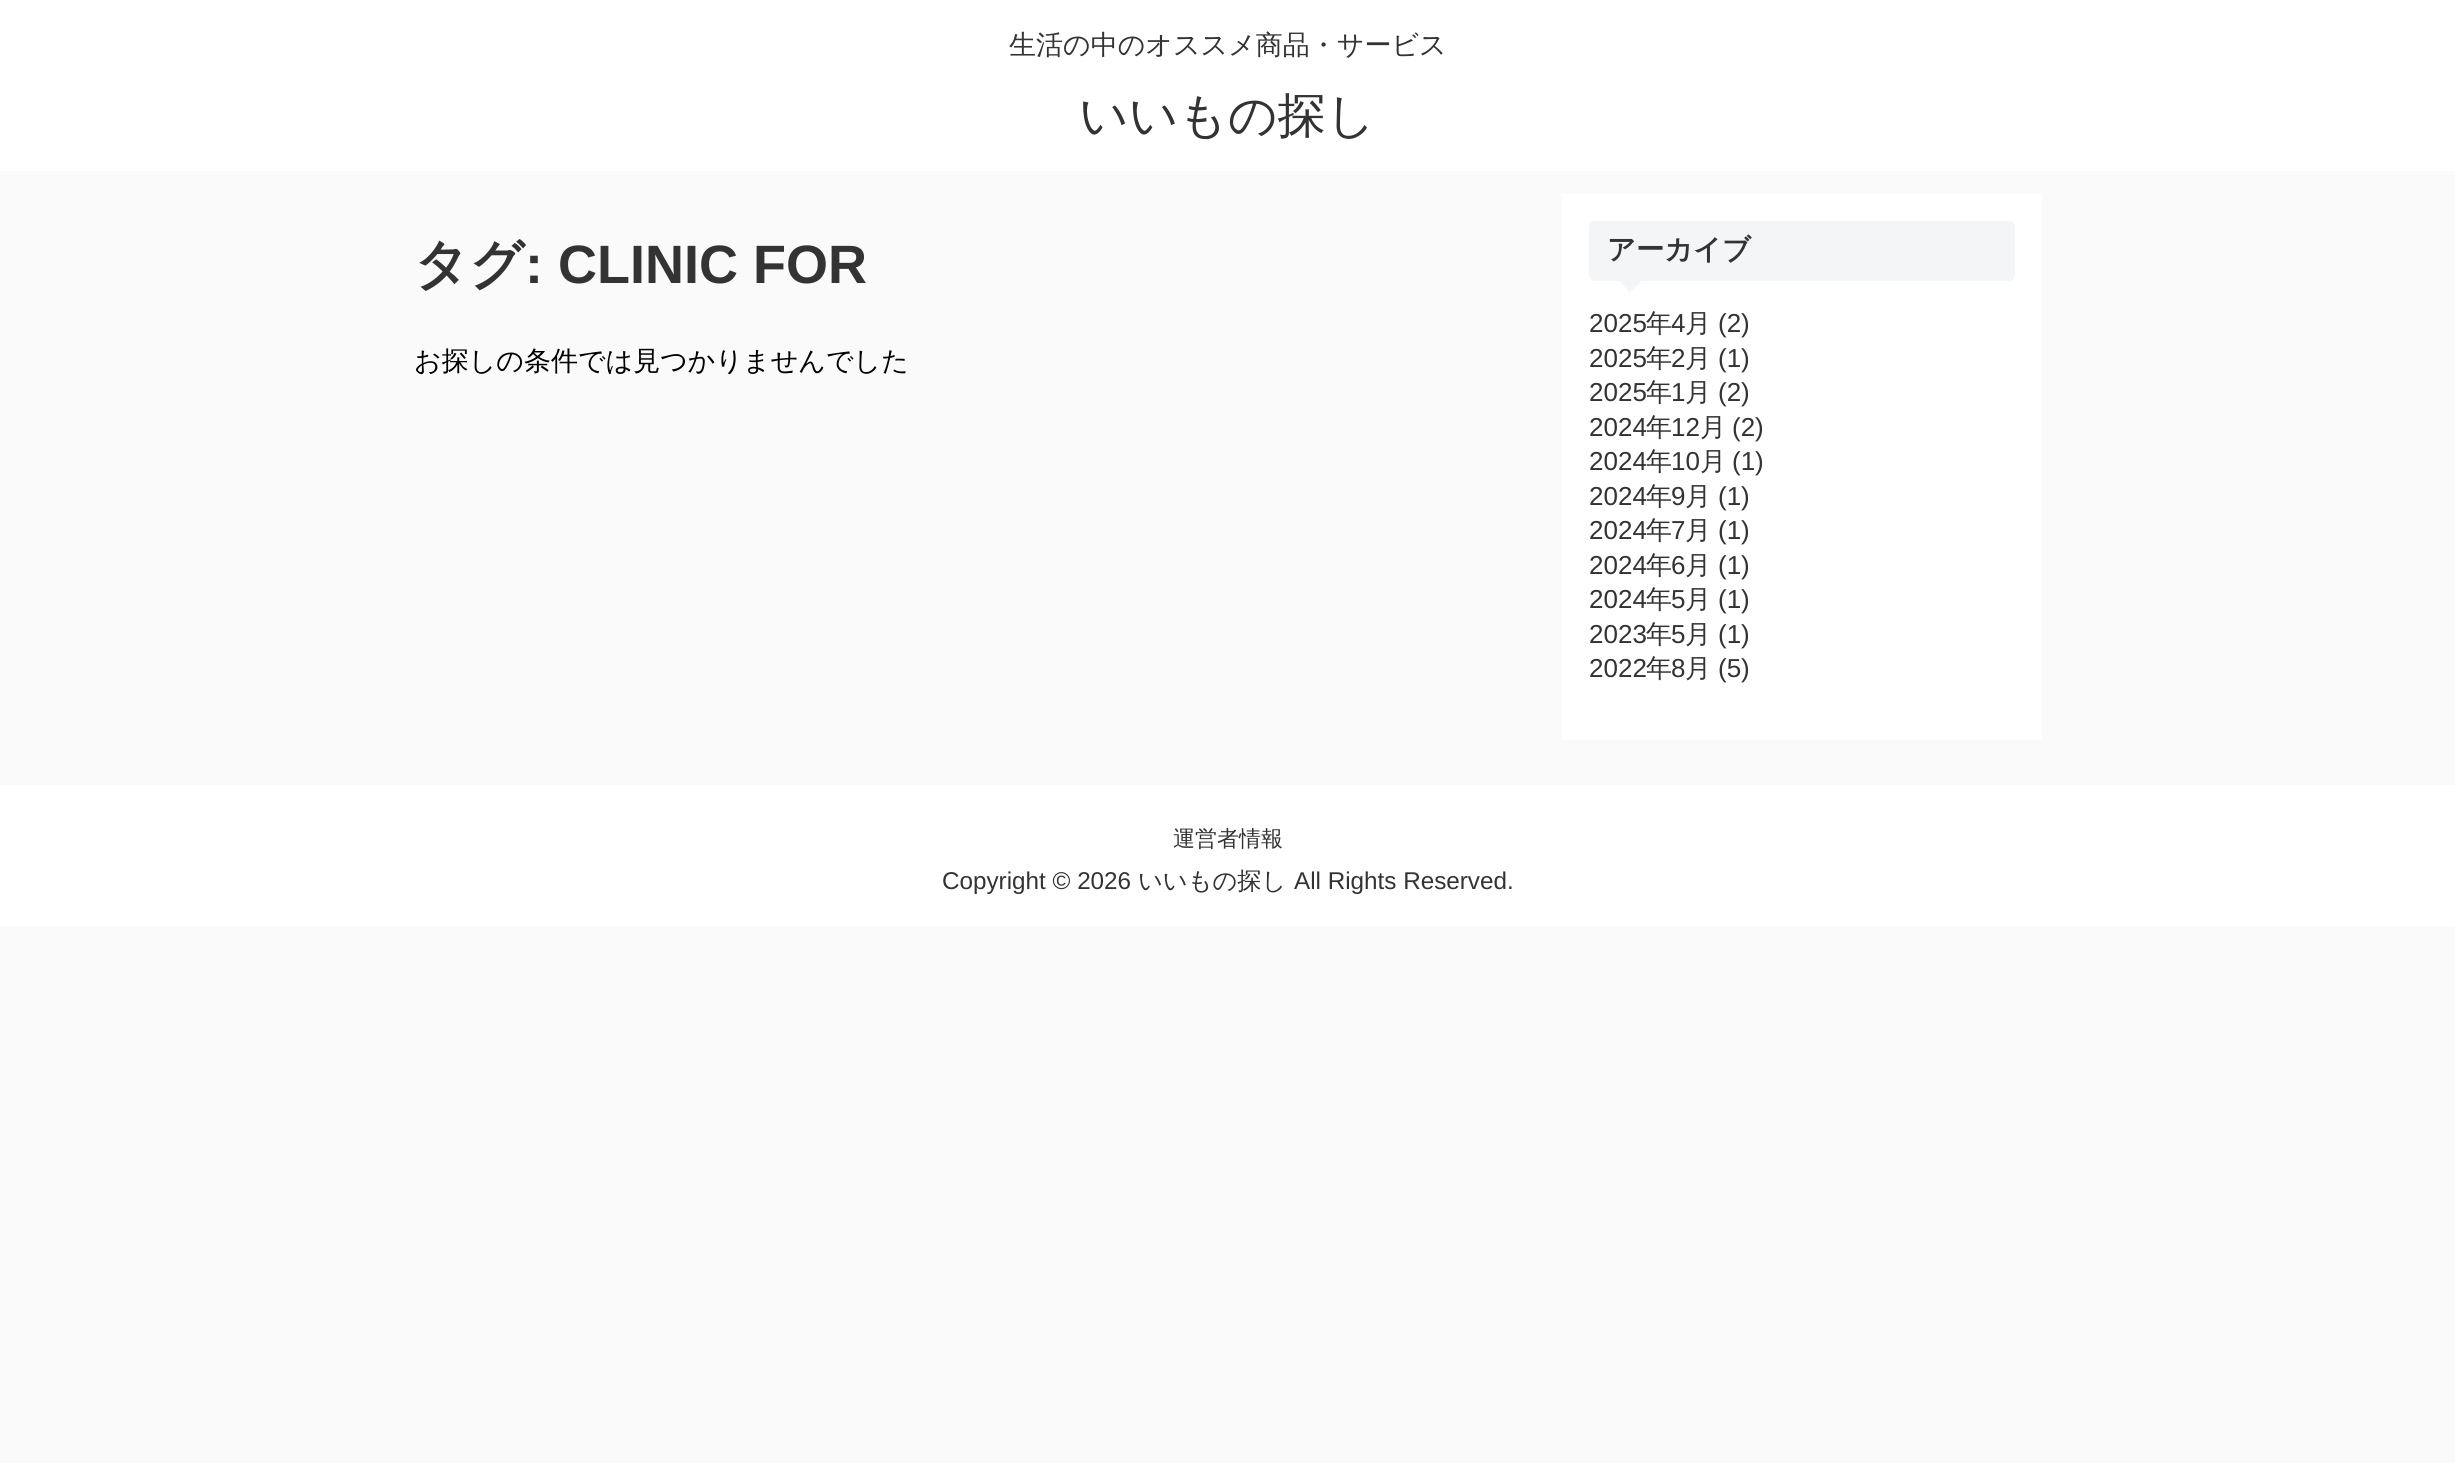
import math
import cairo

surface = cairo.ImageSurface(cairo.FORMAT_RGB24, 2455, 1463)
cr = cairo.Context(surface)
options = cairo.FontOptions()
options.set_hint_metrics(cairo.HINT_METRICS_OFF)
options.set_hint_style(cairo.HINT_STYLE_NONE)
cr.set_font_options(options)
cr.set_miter_limit(4)


def rgb(code):
    cr.set_source_rgb(*(v / 255 for v in bytes.fromhex(code[-6:])))


def rrect(x, y, w, h, r):
    cr.new_sub_path()
    for i, (u, v) in enumerate([(x + w - r, y + h - r), (x + r, y + h - r), (x + r, y + r), (x + w - r, y + r)]):
        cr.arc(u, v, r, i * math.pi / 2, (i + 1) * math.pi / 2)
    cr.close_path()


rgb("#fafafa")
cr.paint()
rgb("#ffffff")
cr.rectangle(0, 0, 2455, 171)
cr.fill()
cr.rectangle(1562, 194, 480, 546)
cr.fill()
rgb("#f4f5f7")
rrect(1590.5, 222.5, 423, 57, 4.5)
cr.fill_preserve()
cr.set_line_width(3)
cr.stroke()
rgb("#ffffff")
cr.rectangle(0, 785, 2455, 141)
cr.fill()
cr.select_font_face("WenQuanYi Zen Hei Medium")
cr.set_font_size(27)
rgb("#333333")
cr.move_to(1009, 54)
cr.show_text("生活の中のオススメ商品・サービス")
cr.set_font_size(48.5)
cr.move_to(1079, 132)
cr.show_text("いいもの探し")
cr.select_font_face("WenQuanYi Zen Hei", cairo.FONT_SLANT_NORMAL, cairo.FONT_WEIGHT_BOLD)
cr.set_font_size(54)
cr.move_to(414, 283)
cr.show_text("タグ")
cr.select_font_face("Liberation Sans", cairo.FONT_SLANT_NORMAL, cairo.FONT_WEIGHT_BOLD)
cr.move_to(525, 283)
cr.show_text(": CLINIC FOR")
cr.select_font_face("WenQuanYi Zen Hei Medium")
cr.set_font_size(27)
rgb("#000000")
cr.move_to(414, 370)
cr.show_text("お探しの条件では見つかりませんでした")
cr.select_font_face("WenQuanYi Zen Hei", cairo.FONT_SLANT_NORMAL, cairo.FONT_WEIGHT_BOLD)
cr.set_font_size(28.25)
rgb("#333333")
cr.move_to(1607, 259)
cr.show_text("アーカイブ")
rgb("#f4f5f7")
cr.new_path()
cr.move_to(1630, 262)
cr.line_to(1645, 277)
cr.line_to(1630, 292)
cr.line_to(1615.5, 277)
cr.close_path()
cr.fill()
cr.new_path()
cr.move_to(1645, 277)
cr.line_to(1630, 292)
cr.line_to(1630, 287.5)
cr.line_to(1641, 277)
cr.close_path()
cr.move_to(1630, 292)
cr.line_to(1615.5, 277)
cr.line_to(1619.5, 277)
cr.line_to(1630, 287.5)
cr.close_path()
cr.fill()
cr.select_font_face("Liberation Sans")
cr.set_font_size(26)
rgb("#333333")
cr.move_to(1589, 332)
cr.show_text("2025")
cr.select_font_face("WenQuanYi Zen Hei Medium")
cr.move_to(1646, 332)
cr.show_text("年")
cr.select_font_face("Liberation Sans")
cr.move_to(1671, 332)
cr.show_text("4")
cr.select_font_face("WenQuanYi Zen Hei Medium")
cr.move_to(1685, 332)
cr.show_text("月")
cr.select_font_face("Liberation Sans")
cr.move_to(1718, 332)
cr.show_text("(2)")
cr.move_to(1589, 367)
cr.show_text("2025")
cr.select_font_face("WenQuanYi Zen Hei Medium")
cr.move_to(1646, 367)
cr.show_text("年")
cr.select_font_face("Liberation Sans")
cr.move_to(1671, 367)
cr.show_text("2")
cr.select_font_face("WenQuanYi Zen Hei Medium")
cr.move_to(1685, 367)
cr.show_text("月")
cr.select_font_face("Liberation Sans")
cr.move_to(1718, 367)
cr.show_text("(1)")
cr.move_to(1589, 401)
cr.show_text("2025")
cr.select_font_face("WenQuanYi Zen Hei Medium")
cr.move_to(1646, 401)
cr.show_text("年")
cr.select_font_face("Liberation Sans")
cr.move_to(1671, 401)
cr.show_text("1")
cr.select_font_face("WenQuanYi Zen Hei Medium")
cr.move_to(1685, 401)
cr.show_text("月")
cr.select_font_face("Liberation Sans")
cr.move_to(1718, 401)
cr.show_text("(2)")
cr.move_to(1589, 436)
cr.show_text("2024")
cr.select_font_face("WenQuanYi Zen Hei Medium")
cr.move_to(1646, 436)
cr.show_text("年")
cr.select_font_face("Liberation Sans")
cr.move_to(1671, 436)
cr.show_text("12")
cr.select_font_face("WenQuanYi Zen Hei Medium")
cr.move_to(1700, 436)
cr.show_text("月")
cr.select_font_face("Liberation Sans")
cr.move_to(1732, 436)
cr.show_text("(2)")
cr.move_to(1589, 470)
cr.show_text("2024")
cr.select_font_face("WenQuanYi Zen Hei Medium")
cr.move_to(1646, 470)
cr.show_text("年")
cr.select_font_face("Liberation Sans")
cr.move_to(1671, 470)
cr.show_text("10")
cr.select_font_face("WenQuanYi Zen Hei Medium")
cr.move_to(1700, 470)
cr.show_text("月")
cr.select_font_face("Liberation Sans")
cr.move_to(1732, 470)
cr.show_text("(1)")
cr.move_to(1589, 505)
cr.show_text("2024")
cr.select_font_face("WenQuanYi Zen Hei Medium")
cr.move_to(1646, 505)
cr.show_text("年")
cr.select_font_face("Liberation Sans")
cr.move_to(1671, 505)
cr.show_text("9")
cr.select_font_face("WenQuanYi Zen Hei Medium")
cr.move_to(1685, 505)
cr.show_text("月")
cr.select_font_face("Liberation Sans")
cr.move_to(1718, 505)
cr.show_text("(1)")
cr.move_to(1589, 539)
cr.show_text("2024")
cr.select_font_face("WenQuanYi Zen Hei Medium")
cr.move_to(1646, 539)
cr.show_text("年")
cr.select_font_face("Liberation Sans")
cr.move_to(1671, 539)
cr.show_text("7")
cr.select_font_face("WenQuanYi Zen Hei Medium")
cr.move_to(1685, 539)
cr.show_text("月")
cr.select_font_face("Liberation Sans")
cr.move_to(1718, 539)
cr.show_text("(1)")
cr.move_to(1589, 574)
cr.show_text("2024")
cr.select_font_face("WenQuanYi Zen Hei Medium")
cr.move_to(1646, 574)
cr.show_text("年")
cr.select_font_face("Liberation Sans")
cr.move_to(1671, 574)
cr.show_text("6")
cr.select_font_face("WenQuanYi Zen Hei Medium")
cr.move_to(1685, 574)
cr.show_text("月")
cr.select_font_face("Liberation Sans")
cr.move_to(1718, 574)
cr.show_text("(1)")
cr.move_to(1589, 608)
cr.show_text("2024")
cr.select_font_face("WenQuanYi Zen Hei Medium")
cr.move_to(1646, 608)
cr.show_text("年")
cr.select_font_face("Liberation Sans")
cr.move_to(1671, 608)
cr.show_text("5")
cr.select_font_face("WenQuanYi Zen Hei Medium")
cr.move_to(1685, 608)
cr.show_text("月")
cr.select_font_face("Liberation Sans")
cr.move_to(1718, 608)
cr.show_text("(1)")
cr.move_to(1589, 643)
cr.show_text("2023")
cr.select_font_face("WenQuanYi Zen Hei Medium")
cr.move_to(1646, 643)
cr.show_text("年")
cr.select_font_face("Liberation Sans")
cr.move_to(1671, 643)
cr.show_text("5")
cr.select_font_face("WenQuanYi Zen Hei Medium")
cr.move_to(1685, 643)
cr.show_text("月")
cr.select_font_face("Liberation Sans")
cr.move_to(1718, 643)
cr.show_text("(1)")
cr.move_to(1589, 677)
cr.show_text("2022")
cr.select_font_face("WenQuanYi Zen Hei Medium")
cr.move_to(1646, 677)
cr.show_text("年")
cr.select_font_face("Liberation Sans")
cr.move_to(1671, 677)
cr.show_text("8")
cr.select_font_face("WenQuanYi Zen Hei Medium")
cr.move_to(1685, 677)
cr.show_text("月")
cr.select_font_face("Liberation Sans")
cr.move_to(1718, 677)
cr.show_text("(5)")
cr.select_font_face("WenQuanYi Zen Hei Medium")
cr.set_font_size(22)
cr.move_to(1173, 846)
cr.show_text("運営者情報")
cr.select_font_face("Liberation Sans")
cr.set_font_size(24.25)
cr.move_to(942, 889)
cr.show_text("Copyright © 2026")
cr.select_font_face("WenQuanYi Zen Hei Medium")
cr.move_to(1138, 889)
cr.show_text("いいもの探し")
cr.select_font_face("Liberation Sans")
cr.move_to(1294, 889)
cr.show_text("All Rights Reserved.")
surface.write_to_png("page.png")
